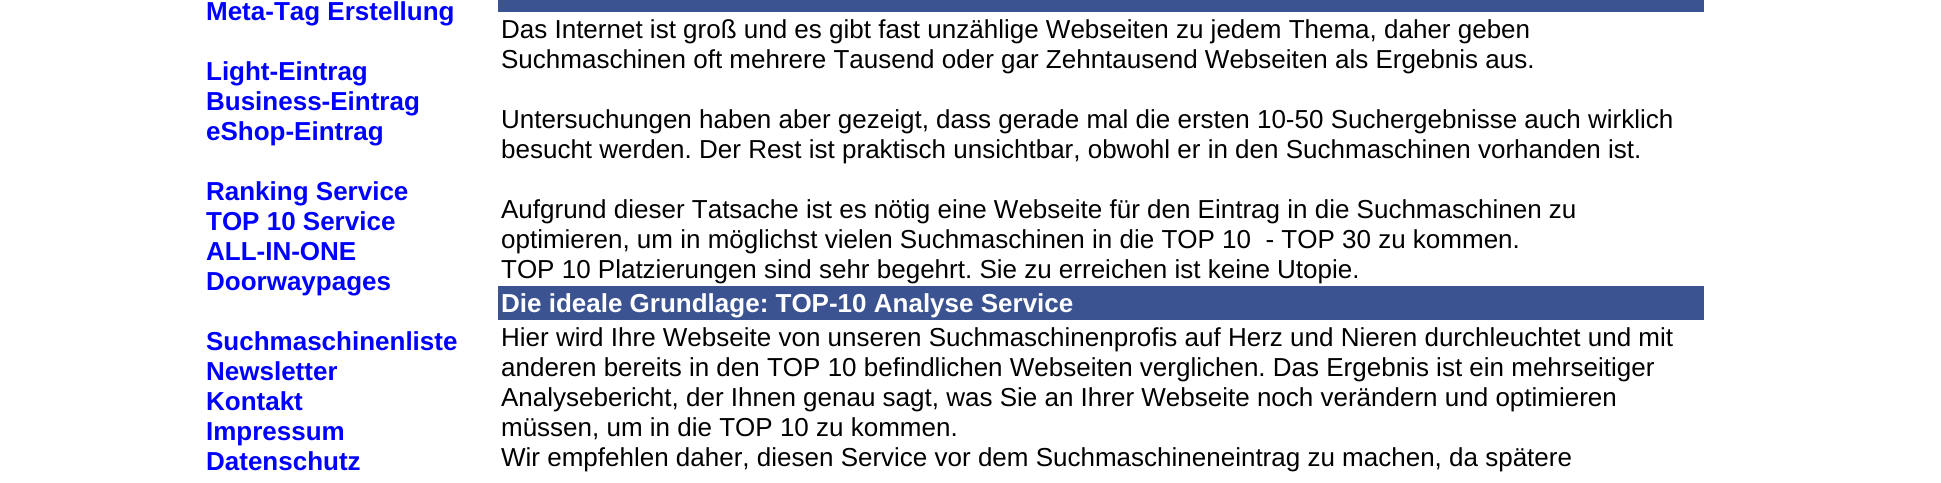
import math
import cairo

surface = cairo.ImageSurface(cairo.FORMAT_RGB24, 1941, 483)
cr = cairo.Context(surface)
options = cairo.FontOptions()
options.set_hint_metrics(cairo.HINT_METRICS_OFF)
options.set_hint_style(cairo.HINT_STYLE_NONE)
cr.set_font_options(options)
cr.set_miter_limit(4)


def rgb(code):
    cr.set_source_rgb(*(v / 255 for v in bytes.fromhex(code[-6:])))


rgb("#ffffff")
cr.paint()
rgb("#3c5391")
cr.rectangle(498, 0, 1206, 12)
cr.fill()
cr.rectangle(498, 286, 1206, 34)
cr.fill()
cr.select_font_face("Liberation Sans", cairo.FONT_SLANT_NORMAL, cairo.FONT_WEIGHT_BOLD)
cr.set_font_size(26)
rgb("#0000ff")
for x, y, s in [
    (206, 20, "Meta-Tag Erstellung"),
    (206, 80, "Light-Eintrag"),
    (206, 110, "Business-Eintrag"),
    (206, 140, "eShop-Eintrag"),
    (206, 200, "Ranking Service"),
    (206, 230, "TOP 10 Service"),
    (206, 260, "ALL-IN-ONE"),
    (206, 290, "Doorwaypages"),
    (206, 350, "Suchmaschinenliste"),
    (206, 380, "Newsletter"),
    (206, 410, "Kontakt"),
    (206, 440, "Impressum"),
    (206, 470, "Datenschutz"),
]:
    cr.move_to(x, y)
    cr.show_text(s)
cr.select_font_face("Liberation Sans")
rgb("#000000")
for x, y, s in [
    (501, 38, "Das Internet ist groß und es gibt fast unzählige Webseiten zu jedem Thema, daher geben"),
    (501, 68, "Suchmaschinen oft mehrere Tausend oder gar Zehntausend Webseiten als Ergebnis aus."),
    (501, 128, "Untersuchungen haben aber gezeigt, dass gerade mal die ersten 10-50 Suchergebnisse auch wirklich"),
    (501, 158, "besucht werden. Der Rest ist praktisch unsichtbar, obwohl er in den Suchmaschinen vorhanden ist."),
    (501, 218, "Aufgrund dieser Tatsache ist es nötig eine Webseite für den Eintrag in die Suchmaschinen zu"),
    (501, 248, "optimieren, um in möglichst vielen Suchmaschinen in die TOP 10  - TOP 30 zu kommen."),
    (501, 278, "TOP 10 Platzierungen sind sehr begehrt. Sie zu erreichen ist keine Utopie."),
]:
    cr.move_to(x, y)
    cr.show_text(s)
cr.select_font_face("Liberation Sans", cairo.FONT_SLANT_NORMAL, cairo.FONT_WEIGHT_BOLD)
rgb("#ffffff")
cr.move_to(501, 312)
cr.show_text("Die ideale Grundlage: TOP-10 Analyse Service")
cr.select_font_face("Liberation Sans")
rgb("#000000")
for x, y, s in [
    (501, 346, "Hier wird Ihre Webseite von unseren Suchmaschinenprofis auf Herz und Nieren durchleuchtet und mit"),
    (501, 376, "anderen bereits in den TOP 10 befindlichen Webseiten verglichen. Das Ergebnis ist ein mehrseitiger"),
    (501, 406, "Analysebericht, der Ihnen genau sagt, was Sie an Ihrer Webseite noch verändern und optimieren"),
    (501, 436, "müssen, um in die TOP 10 zu kommen."),
    (501, 466, "Wir empfehlen daher, diesen Service vor dem Suchmaschineneintrag zu machen, da spätere"),
]:
    cr.move_to(x, y)
    cr.show_text(s)
surface.write_to_png("page.png")
